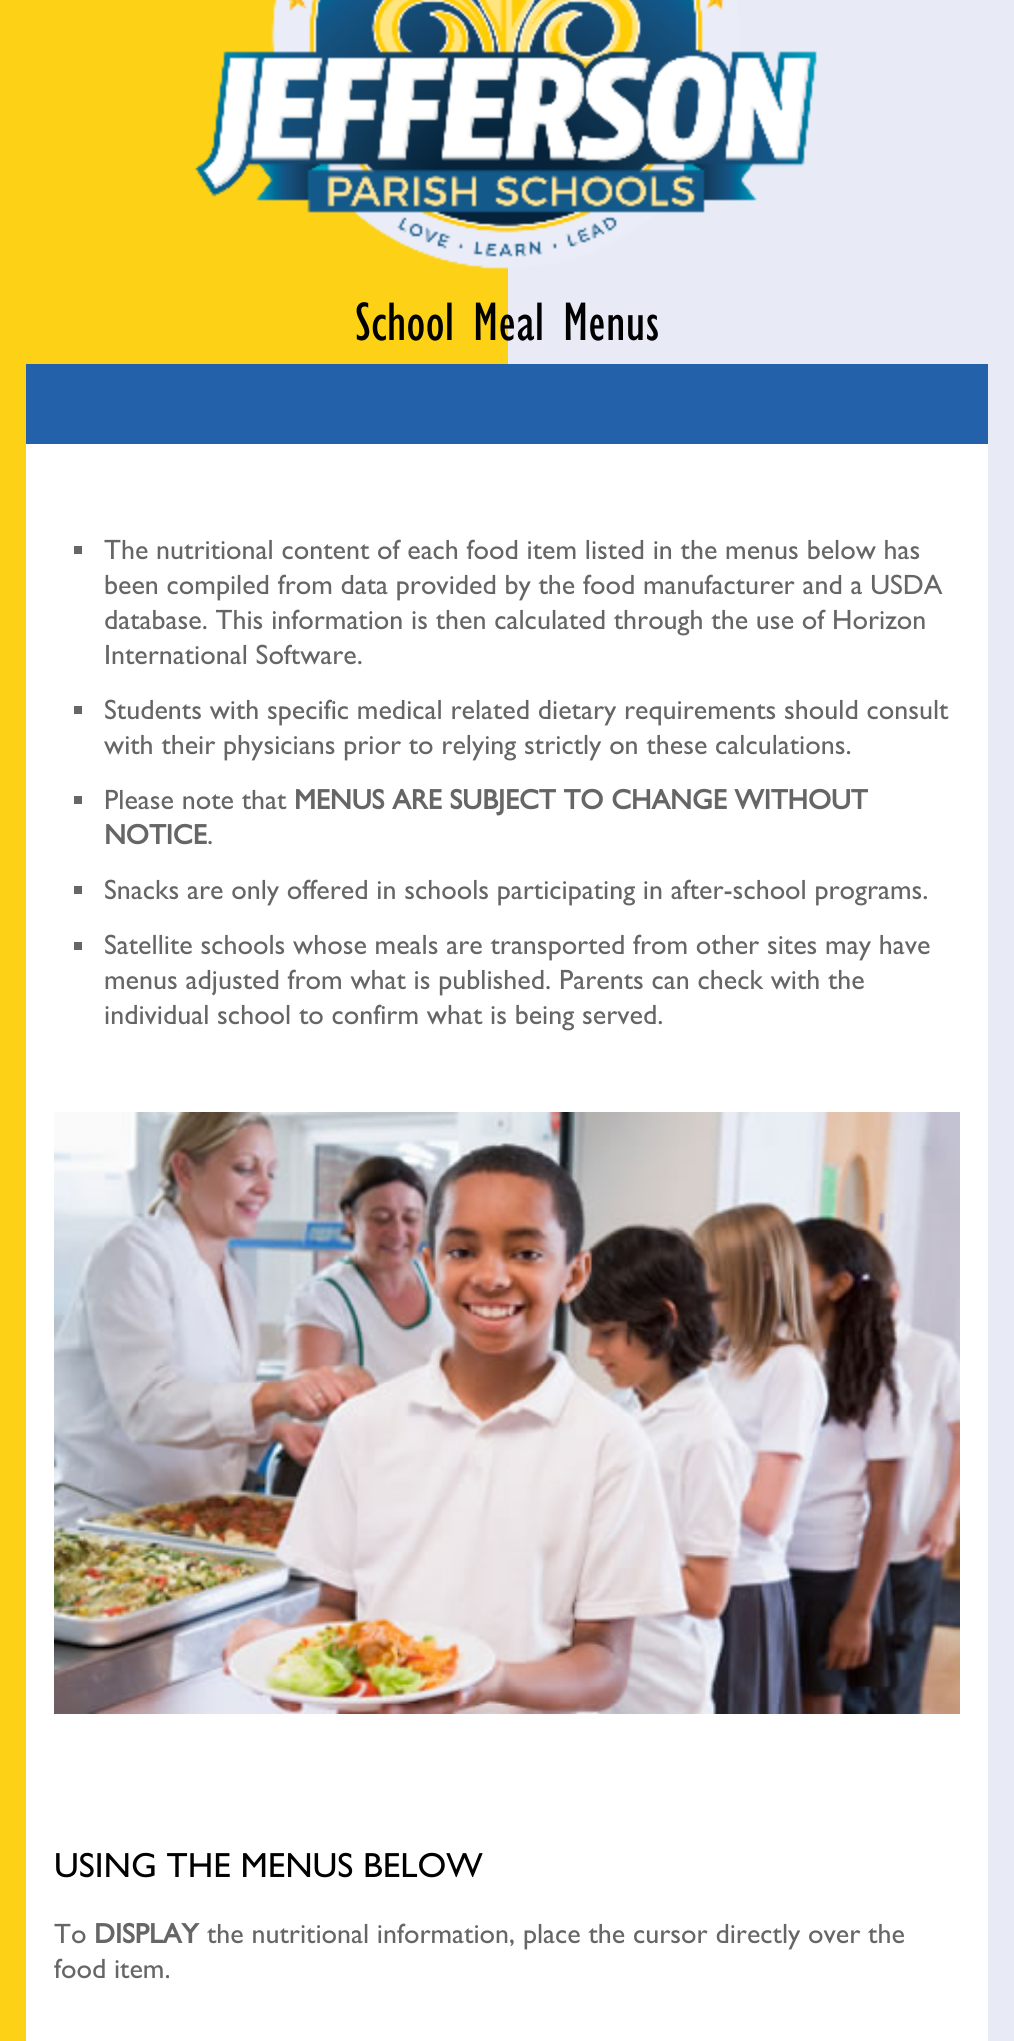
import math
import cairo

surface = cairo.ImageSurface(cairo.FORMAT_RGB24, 1014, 2041)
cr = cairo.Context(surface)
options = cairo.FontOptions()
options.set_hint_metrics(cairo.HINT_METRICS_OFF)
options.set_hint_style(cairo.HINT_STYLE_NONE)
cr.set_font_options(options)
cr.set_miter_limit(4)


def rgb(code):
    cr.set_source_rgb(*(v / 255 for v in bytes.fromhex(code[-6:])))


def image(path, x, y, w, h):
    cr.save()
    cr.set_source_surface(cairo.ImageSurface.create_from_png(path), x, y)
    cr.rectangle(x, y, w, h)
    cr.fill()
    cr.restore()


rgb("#e8eaf6")
cr.paint()
rgb("#fcd116")
cr.rectangle(0, 0, 508, 2041)
cr.fill()
image("img/1.png", 195, 0, 622, 269)
for x, y, w, h, color in [
    (26, 444, 962, 1597, "#ffffff"),
    (26, 364, 962, 80, "#2361aa"),
    (74, 546, 8, 8, "#666666"),
    (74, 706, 8, 8, "#666666"),
    (74, 796, 8, 8, "#666666"),
    (74, 886, 8, 8, "#666666"),
    (74, 942, 8, 8, "#666666"),
]:
    rgb(color)
    cr.rectangle(x, y, w, h)
    cr.fill()
image("img/2.png", 54, 1112, 906, 602)
cr.select_font_face("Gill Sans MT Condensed")
cr.set_font_size(56)
rgb("#000000")
cr.move_to(355, 340)
cr.show_text("School Meal Menus")
cr.select_font_face("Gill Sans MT")
cr.set_font_size(28)
rgb("#666666")
for x, y, s in [
    (104, 559, "The nutritional content of each food item listed in the menus below has"),
    (104, 594, "been compiled from data provided by the food manufacturer and a USDA"),
    (104, 629, "database. This information is then calculated through the use of Horizon"),
    (104, 664, "International Software."),
    (104, 719, "Students with specific medical related dietary requirements should consult"),
    (104, 754, "with their physicians prior to relying strictly on these calculations."),
    (104, 809, "Please note that"),
]:
    cr.move_to(x, y)
    cr.show_text(s)
cr.select_font_face("Gill Sans MT", cairo.FONT_SLANT_NORMAL, cairo.FONT_WEIGHT_BOLD)
cr.move_to(294, 809)
cr.show_text("MENUS ARE SUBJECT TO CHANGE WITHOUT")
cr.move_to(104, 844)
cr.show_text("NOTICE")
cr.select_font_face("Gill Sans MT")
for x, y, s in [
    (207, 844, "."),
    (104, 899, "Snacks are only offered in schools participating in after-school programs."),
    (104, 954, "Satellite schools whose meals are transported from other sites may have"),
    (104, 989, "menus adjusted from what is published. Parents can check with the"),
    (104, 1024, "individual school to confirm what is being served."),
]:
    cr.move_to(x, y)
    cr.show_text(s)
cr.set_font_size(35)
rgb("#000000")
cr.move_to(54, 1877)
cr.show_text("USING THE MENUS BELOW")
cr.set_font_size(28)
rgb("#666666")
cr.move_to(54, 1943)
cr.show_text("To")
cr.select_font_face("Gill Sans MT", cairo.FONT_SLANT_NORMAL, cairo.FONT_WEIGHT_BOLD)
cr.move_to(94, 1943)
cr.show_text("DISPLAY")
cr.select_font_face("Gill Sans MT")
cr.move_to(207, 1943)
cr.show_text("the nutritional information, place the cursor directly over the")
cr.move_to(54, 1978)
cr.show_text("food item.")
surface.write_to_png("page.png")
